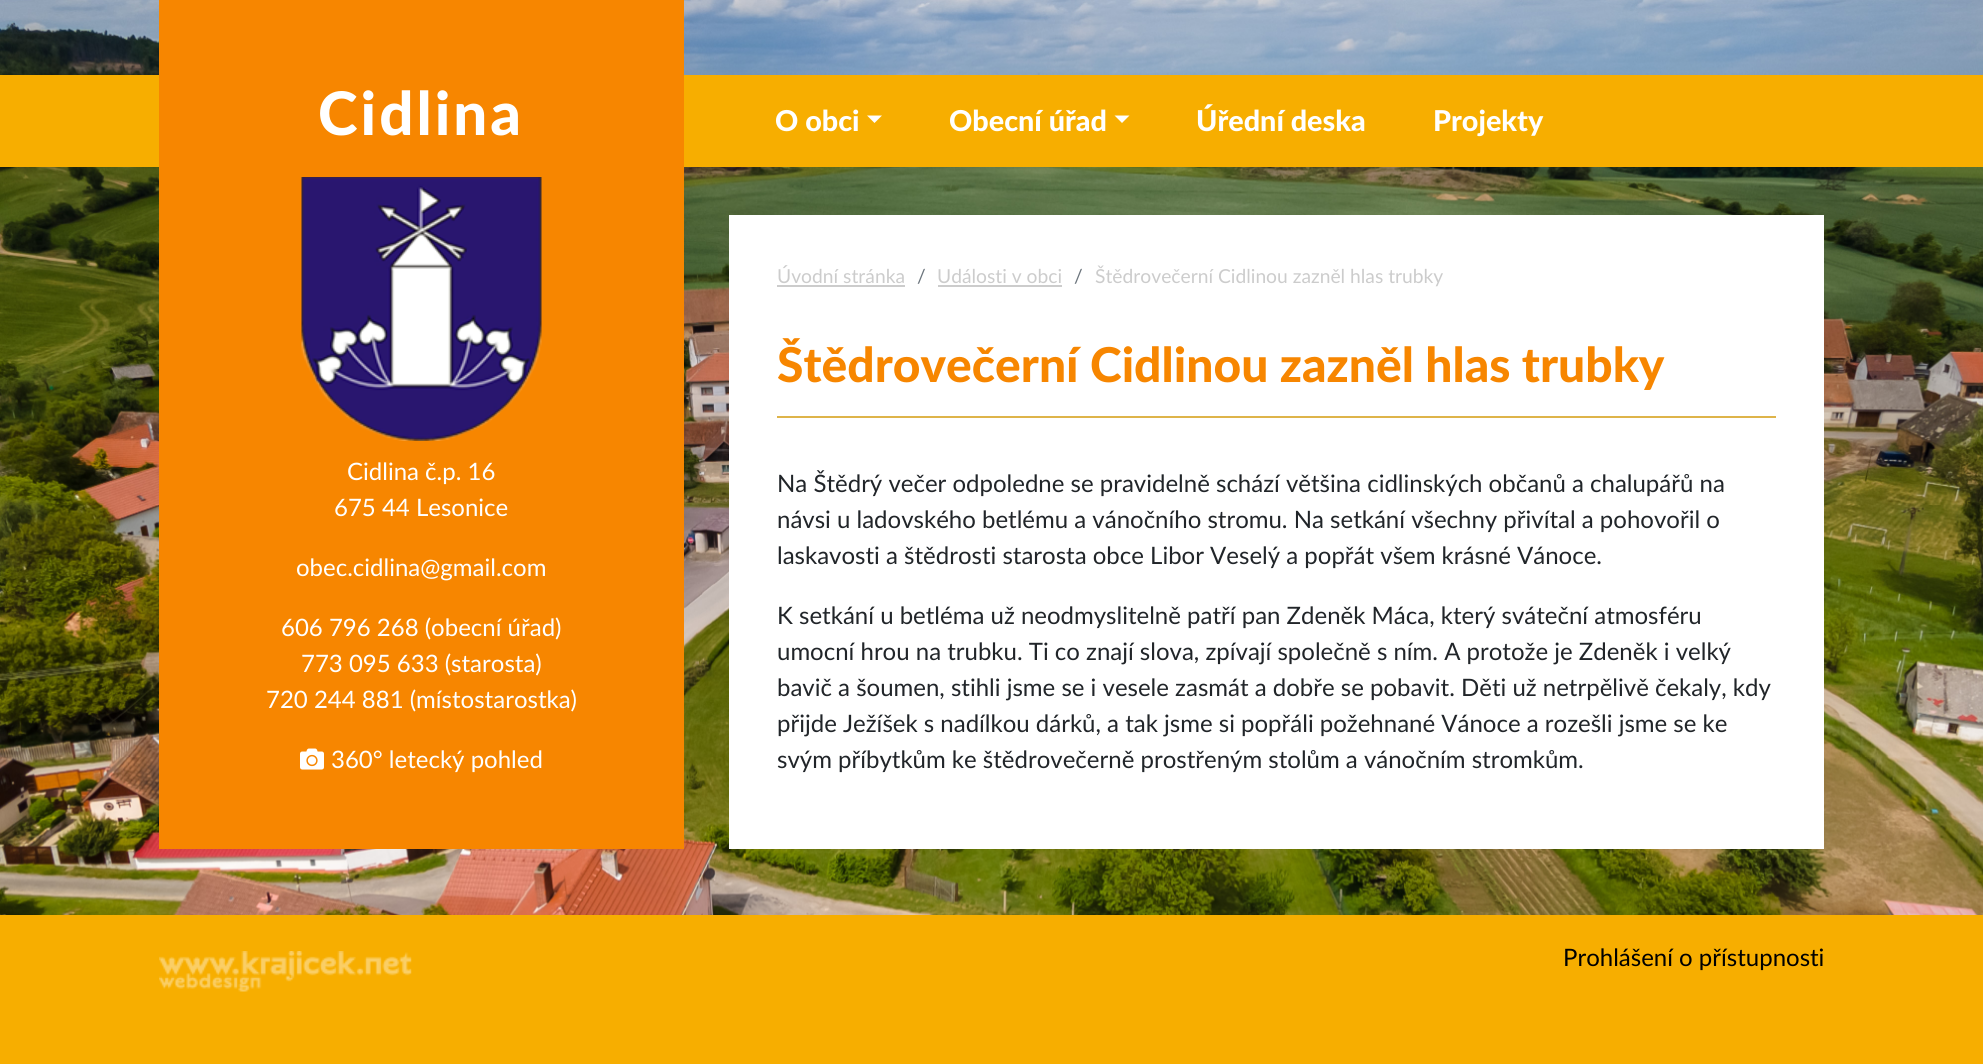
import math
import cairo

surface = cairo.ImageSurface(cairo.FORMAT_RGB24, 1983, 1064)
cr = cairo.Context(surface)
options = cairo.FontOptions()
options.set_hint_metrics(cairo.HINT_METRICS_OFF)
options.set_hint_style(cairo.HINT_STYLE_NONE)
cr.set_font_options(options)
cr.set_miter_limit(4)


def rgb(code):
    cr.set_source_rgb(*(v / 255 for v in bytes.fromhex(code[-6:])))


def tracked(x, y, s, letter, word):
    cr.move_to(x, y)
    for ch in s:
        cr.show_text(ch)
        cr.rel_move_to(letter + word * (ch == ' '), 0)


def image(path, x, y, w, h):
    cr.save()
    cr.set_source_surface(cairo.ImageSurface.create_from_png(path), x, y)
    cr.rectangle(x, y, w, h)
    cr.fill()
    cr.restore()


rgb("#ffffff")
cr.paint()
image("img/1.png", 0, 0, 1983, 915)
rgb("#f7ae00")
cr.rectangle(0, 75, 1983, 92)
cr.fill()
rgb("#f78600")
cr.rectangle(159, 0, 525, 849)
cr.fill()
image("img/2.png", 301, 177, 241, 264)
image("img/3.png", 300, 748, 24, 22)
rgb("#ffffff")
cr.new_path()
cr.move_to(867, 115.5)
cr.line_to(882, 115.5)
cr.line_to(874.5, 123)
cr.close_path()
cr.fill()
cr.new_path()
cr.move_to(1114.5, 115.5)
cr.line_to(1129.5, 115.5)
cr.line_to(1122, 123)
cr.close_path()
cr.fill()
for x, y, w, h, color in [
    (729, 215, 1095, 634, "#ffffff"),
    (777, 285, 128, 2, "#cccccc"),
    (938, 285, 124, 2, "#cccccc"),
    (777, 416, 999, 2, "#deb44a"),
    (0, 915, 1983, 149, "#f7ae00"),
]:
    rgb(color)
    cr.rectangle(x, y, w, h)
    cr.fill()
image("img/4.png", 159, 951, 253, 41)
cr.select_font_face("Lato Black")
cr.set_font_size(60)
rgb("#ffffff")
tracked(318, 135, "Cidlina", 3, 0)
cr.select_font_face("Lato")
cr.set_font_size(24)
for x, y, s in [
    (347, 480, "Cidlina č.p. 16"),
    (334, 516, "675 44 Lesonice"),
    (296, 576, "obec.cidlina@gmail.com"),
    (281, 636, "606 796 268 (obecní úřad)"),
    (301, 672, "773 095 633 (starosta)"),
    (266, 708, "720 244 881 (místostarostka)"),
    (331, 768, "360° letecký pohled"),
]:
    cr.move_to(x, y)
    cr.show_text(s)
cr.select_font_face("Lato Black")
cr.set_font_size(28.75)
for x, y, s in [
    (775, 131, "O obci"),
    (949, 131, "Obecní úřad"),
    (1196, 131, "Úřední deska"),
    (1433, 131, "Projekty"),
]:
    cr.move_to(x, y)
    cr.show_text(s)
cr.select_font_face("Lato")
cr.set_font_size(19.25)
rgb("#cccccc")
cr.move_to(777, 283)
cr.show_text("Úvodní stránka")
rgb("#6c757d")
cr.move_to(917, 283)
cr.show_text("/")
rgb("#cccccc")
cr.move_to(937, 283)
cr.show_text("Události v obci")
rgb("#6c757d")
cr.move_to(1074, 283)
cr.show_text("/")
rgb("#cccccc")
cr.move_to(1095, 283)
cr.show_text("Štědrovečerní Cidlinou zazněl hlas trubky")
cr.select_font_face("Lato Black")
cr.set_font_size(48)
rgb("#f78600")
cr.move_to(777, 382)
cr.show_text("Štědrovečerní Cidlinou zazněl hlas trubky")
cr.select_font_face("Lato")
cr.set_font_size(24)
rgb("#212529")
for x, y, s in [
    (777, 492, "Na Štědrý večer odpoledne se pravidelně schází většina cidlinských občanů a chalupářů na"),
    (777, 528, "návsi u ladovského betlému a vánočního stromu. Na setkání všechny přivítal a pohovořil o"),
    (777, 564, "laskavosti a štědrosti starosta obce Libor Veselý a popřát všem krásné Vánoce."),
    (777, 624, "K setkání u betléma už neodmyslitelně patří pan Zdeněk Máca, který sváteční atmosféru"),
    (777, 660, "umocní hrou na trubku. Ti co znají slova, zpívají společně s ním. A protože je Zdeněk i velký"),
    (777, 696, "bavič a šoumen, stihli jsme se i vesele zasmát a dobře se pobavit. Děti už netrpělivě čekaly, kdy"),
    (777, 732, "přijde Ježíšek s nadílkou dárků, a tak jsme si popřáli požehnané Vánoce a rozešli jsme se ke"),
    (777, 768, "svým příbytkům ke štědrovečerně prostřeným stolům a vánočním stromkům."),
]:
    cr.move_to(x, y)
    cr.show_text(s)
rgb("#000000")
cr.move_to(1563, 966)
cr.show_text("Prohlášení o přístupnosti")
surface.write_to_png("page.png")
